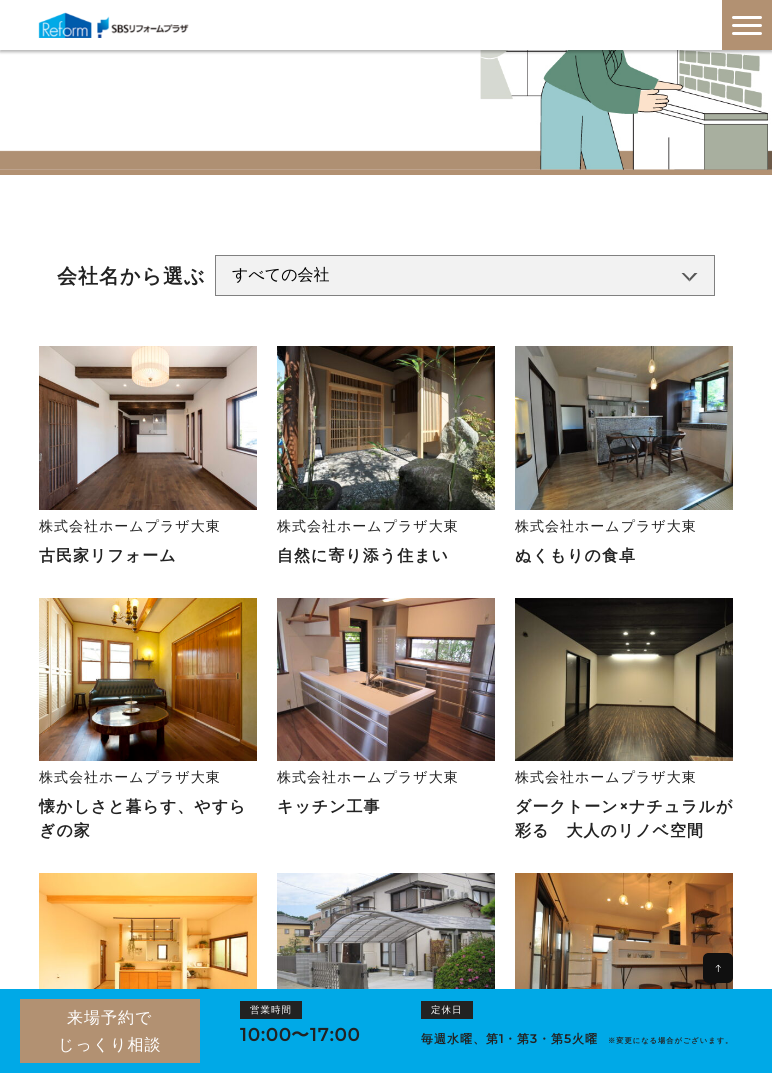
import math
import cairo

surface = cairo.ImageSurface(cairo.FORMAT_RGB24, 772, 1073)
cr = cairo.Context(surface)
options = cairo.FontOptions()
options.set_hint_metrics(cairo.HINT_METRICS_OFF)
options.set_hint_style(cairo.HINT_STYLE_NONE)
cr.set_font_options(options)
cr.set_miter_limit(4)


def rgb(code):
    cr.set_source_rgb(*(v / 255 for v in bytes.fromhex(code[-6:])))


def tracked(x, y, s, letter, word):
    cr.move_to(x, y)
    for ch in s:
        cr.show_text(ch)
        cr.rel_move_to(letter + word * (ch == ' '), 0)


def rrect(x, y, w, h, r):
    cr.new_sub_path()
    for i, (u, v) in enumerate([(x + w - r, y + h - r), (x + r, y + h - r), (x + r, y + r), (x + w - r, y + r)]):
        cr.arc(u, v, r, i * math.pi / 2, (i + 1) * math.pi / 2)
    cr.close_path()


def soft_shadow(x, y, w, h, r, blur, alpha):
    cr.push_group_with_content(cairo.CONTENT_ALPHA)
    cr.set_operator(cairo.OPERATOR_SOURCE)
    for i in range(15, -16, -2):
        e = blur * i / 6
        if min(w, h) + 2 * e > 0:
            cr.set_source_rgba(0, 0, 0, alpha * math.erfc((i - 1) / 8.5) / 2)
            rrect(x - e, y - e, w + 2 * e, h + 2 * e, max(0, min(r + e + blur * .6, min(w, h) / 2 + e)))
            cr.fill()
    cr.mask(cr.pop_group())


def image(path, x, y, w, h):
    cr.save()
    cr.set_source_surface(cairo.ImageSurface.create_from_png(path), x, y)
    cr.rectangle(x, y, w, h)
    cr.fill()
    cr.restore()


rgb("#ffffff")
cr.paint()
image("img/2.png", 0, 50, 772, 120)
rgb("#000000")
soft_shadow(0, 2, 772, 50, 0, 1.5, 0.3)
rgb("#ffffff")
cr.rectangle(0, 0, 722, 50)
cr.fill()
image("img/1.png", 38, 12, 151, 26)
rgb("#b29172")
cr.rectangle(722, 0, 50, 50)
cr.fill()
rgb("#ffffff")
rrect(732, 16, 30, 3, 1.5)
cr.fill()
rrect(732, 24, 30, 3, 1.5)
cr.fill()
rrect(732, 32, 30, 3, 1.5)
cr.fill()
rgb("#b29172")
cr.rectangle(0, 170, 772, 5)
cr.fill()
rgb("#f2f2f2")
cr.rectangle(215.5, 255.5, 499, 40)
cr.fill_preserve()
rgb("#808080")
cr.set_line_width(1)
cr.stroke()
rgb("#565656")
cr.new_path()
cr.move_to(697.5, 273)
cr.line_to(689.5, 281.5)
cr.line_to(689.5, 278.5)
cr.line_to(694.5, 273)
cr.close_path()
cr.fill()
cr.new_path()
cr.move_to(689.5, 281.5)
cr.line_to(681.5, 273)
cr.line_to(684, 273)
cr.line_to(689.5, 278.5)
cr.close_path()
cr.fill()
image("img/3.png", 39, 346, 218, 164)
image("img/4.png", 277, 346, 218, 164)
image("img/5.png", 515, 346, 218, 164)
image("img/6.png", 39, 598, 218, 163)
image("img/7.png", 277, 598, 218, 163)
image("img/8.png", 515, 598, 218, 163)
image("img/9.png", 39, 873, 218, 116)
image("img/10.png", 277, 873, 218, 116)
image("img/11.png", 515, 873, 218, 116)
image("img/12.png", 703, 953, 30, 30)
for x, y, w, h, color in [
    (0, 989, 772, 84, "#00a9e7"),
    (20, 999, 180, 64, "#b29172"),
    (240, 1001, 62, 18, "#222222"),
    (421, 1001, 52, 18, "#222222"),
]:
    rgb(color)
    cr.rectangle(x, y, w, h)
    cr.fill()
cr.select_font_face("WenQuanYi Zen Hei", cairo.FONT_SLANT_NORMAL, cairo.FONT_WEIGHT_BOLD)
cr.set_font_size(20)
tracked(57, 283, "会社名から選ぶ", 1, 0)
cr.select_font_face("WenQuanYi Zen Hei Medium")
cr.set_font_size(16)
rgb("#000000")
cr.move_to(232, 280)
cr.show_text("すべての会社")
cr.set_font_size(14)
rgb("#222222")
tracked(39, 531, "株式会社ホームプラザ大東", 1, 0)
cr.select_font_face("WenQuanYi Zen Hei", cairo.FONT_SLANT_NORMAL, cairo.FONT_WEIGHT_BOLD)
cr.set_font_size(16)
tracked(39, 561, "古民家リフォーム", 1, 0)
cr.select_font_face("WenQuanYi Zen Hei Medium")
cr.set_font_size(14)
tracked(277, 531, "株式会社ホームプラザ大東", 1, 0)
cr.select_font_face("WenQuanYi Zen Hei", cairo.FONT_SLANT_NORMAL, cairo.FONT_WEIGHT_BOLD)
cr.set_font_size(16)
tracked(277, 561, "自然に寄り添う住まい", 1, 0)
cr.select_font_face("WenQuanYi Zen Hei Medium")
cr.set_font_size(14)
tracked(515, 531, "株式会社ホームプラザ大東", 1, 0)
cr.select_font_face("WenQuanYi Zen Hei", cairo.FONT_SLANT_NORMAL, cairo.FONT_WEIGHT_BOLD)
cr.set_font_size(16)
tracked(515, 561, "ぬくもりの食卓", 1, 0)
cr.select_font_face("WenQuanYi Zen Hei Medium")
cr.set_font_size(14)
tracked(39, 782, "株式会社ホームプラザ大東", 1, 0)
cr.select_font_face("WenQuanYi Zen Hei", cairo.FONT_SLANT_NORMAL, cairo.FONT_WEIGHT_BOLD)
cr.set_font_size(16)
tracked(39, 812, "懐かしさと暮らす、やすら", 1, 0)
tracked(39, 836, "ぎの家", 1, 0)
cr.select_font_face("WenQuanYi Zen Hei Medium")
cr.set_font_size(14)
tracked(277, 782, "株式会社ホームプラザ大東", 1, 0)
cr.select_font_face("WenQuanYi Zen Hei", cairo.FONT_SLANT_NORMAL, cairo.FONT_WEIGHT_BOLD)
cr.set_font_size(16)
tracked(277, 812, "キッチン工事", 1, 0)
cr.select_font_face("WenQuanYi Zen Hei Medium")
cr.set_font_size(14)
tracked(515, 782, "株式会社ホームプラザ大東", 1, 0)
cr.select_font_face("WenQuanYi Zen Hei", cairo.FONT_SLANT_NORMAL, cairo.FONT_WEIGHT_BOLD)
cr.set_font_size(16)
tracked(515, 812, "ダークトーン", 1, 0)
cr.select_font_face("Montserrat", cairo.FONT_SLANT_NORMAL, cairo.FONT_WEIGHT_BOLD)
tracked(619, 812, "×", 1, 0)
cr.select_font_face("WenQuanYi Zen Hei", cairo.FONT_SLANT_NORMAL, cairo.FONT_WEIGHT_BOLD)
tracked(629, 812, "ナチュラルが", 1, 0)
tracked(515, 836, "彩る　大人のリノベ空間", 1, 0)
cr.select_font_face("WenQuanYi Zen Hei Medium")
rgb("#ffffff")
tracked(67, 1023, "来場予約で", 1, 0)
tracked(58, 1050, "じっくり相談", 1, 0)
cr.set_font_size(9.5)
tracked(250, 1013, "営業時間", 1, 0)
cr.select_font_face("Montserrat", cairo.FONT_SLANT_NORMAL, cairo.FONT_WEIGHT_BOLD)
cr.set_font_size(18)
rgb("#222222")
tracked(240, 1041, "10:00", 1, 0)
cr.select_font_face("WenQuanYi Zen Hei", cairo.FONT_SLANT_NORMAL, cairo.FONT_WEIGHT_BOLD)
tracked(291, 1041, "〜", 1, 0)
cr.select_font_face("Montserrat", cairo.FONT_SLANT_NORMAL, cairo.FONT_WEIGHT_BOLD)
tracked(310, 1041, "17:00", 1, 0)
cr.select_font_face("WenQuanYi Zen Hei Medium")
cr.set_font_size(9.5)
rgb("#ffffff")
tracked(431, 1013, "定休日", 1, 0)
cr.select_font_face("WenQuanYi Zen Hei", cairo.FONT_SLANT_NORMAL, cairo.FONT_WEIGHT_BOLD)
cr.set_font_size(12)
rgb("#222222")
tracked(421, 1043, "毎週水曜、第", 1, 0)
cr.select_font_face("Montserrat", cairo.FONT_SLANT_NORMAL, cairo.FONT_WEIGHT_BOLD)
tracked(499, 1043, "1", 1, 0)
cr.select_font_face("WenQuanYi Zen Hei", cairo.FONT_SLANT_NORMAL, cairo.FONT_WEIGHT_BOLD)
tracked(504, 1043, "・第", 1, 0)
cr.select_font_face("Montserrat", cairo.FONT_SLANT_NORMAL, cairo.FONT_WEIGHT_BOLD)
tracked(530, 1043, "3", 1, 0)
cr.select_font_face("WenQuanYi Zen Hei", cairo.FONT_SLANT_NORMAL, cairo.FONT_WEIGHT_BOLD)
tracked(538, 1043, "・第", 1, 0)
cr.select_font_face("Montserrat", cairo.FONT_SLANT_NORMAL, cairo.FONT_WEIGHT_BOLD)
tracked(564, 1043, "5", 1, 0)
cr.select_font_face("WenQuanYi Zen Hei", cairo.FONT_SLANT_NORMAL, cairo.FONT_WEIGHT_BOLD)
tracked(572, 1043, "火曜", 1, 0)
cr.set_font_size(7.25)
tracked(608, 1043, "※変更になる場合がございます。", 1, 0)
surface.write_to_png("page.png")
